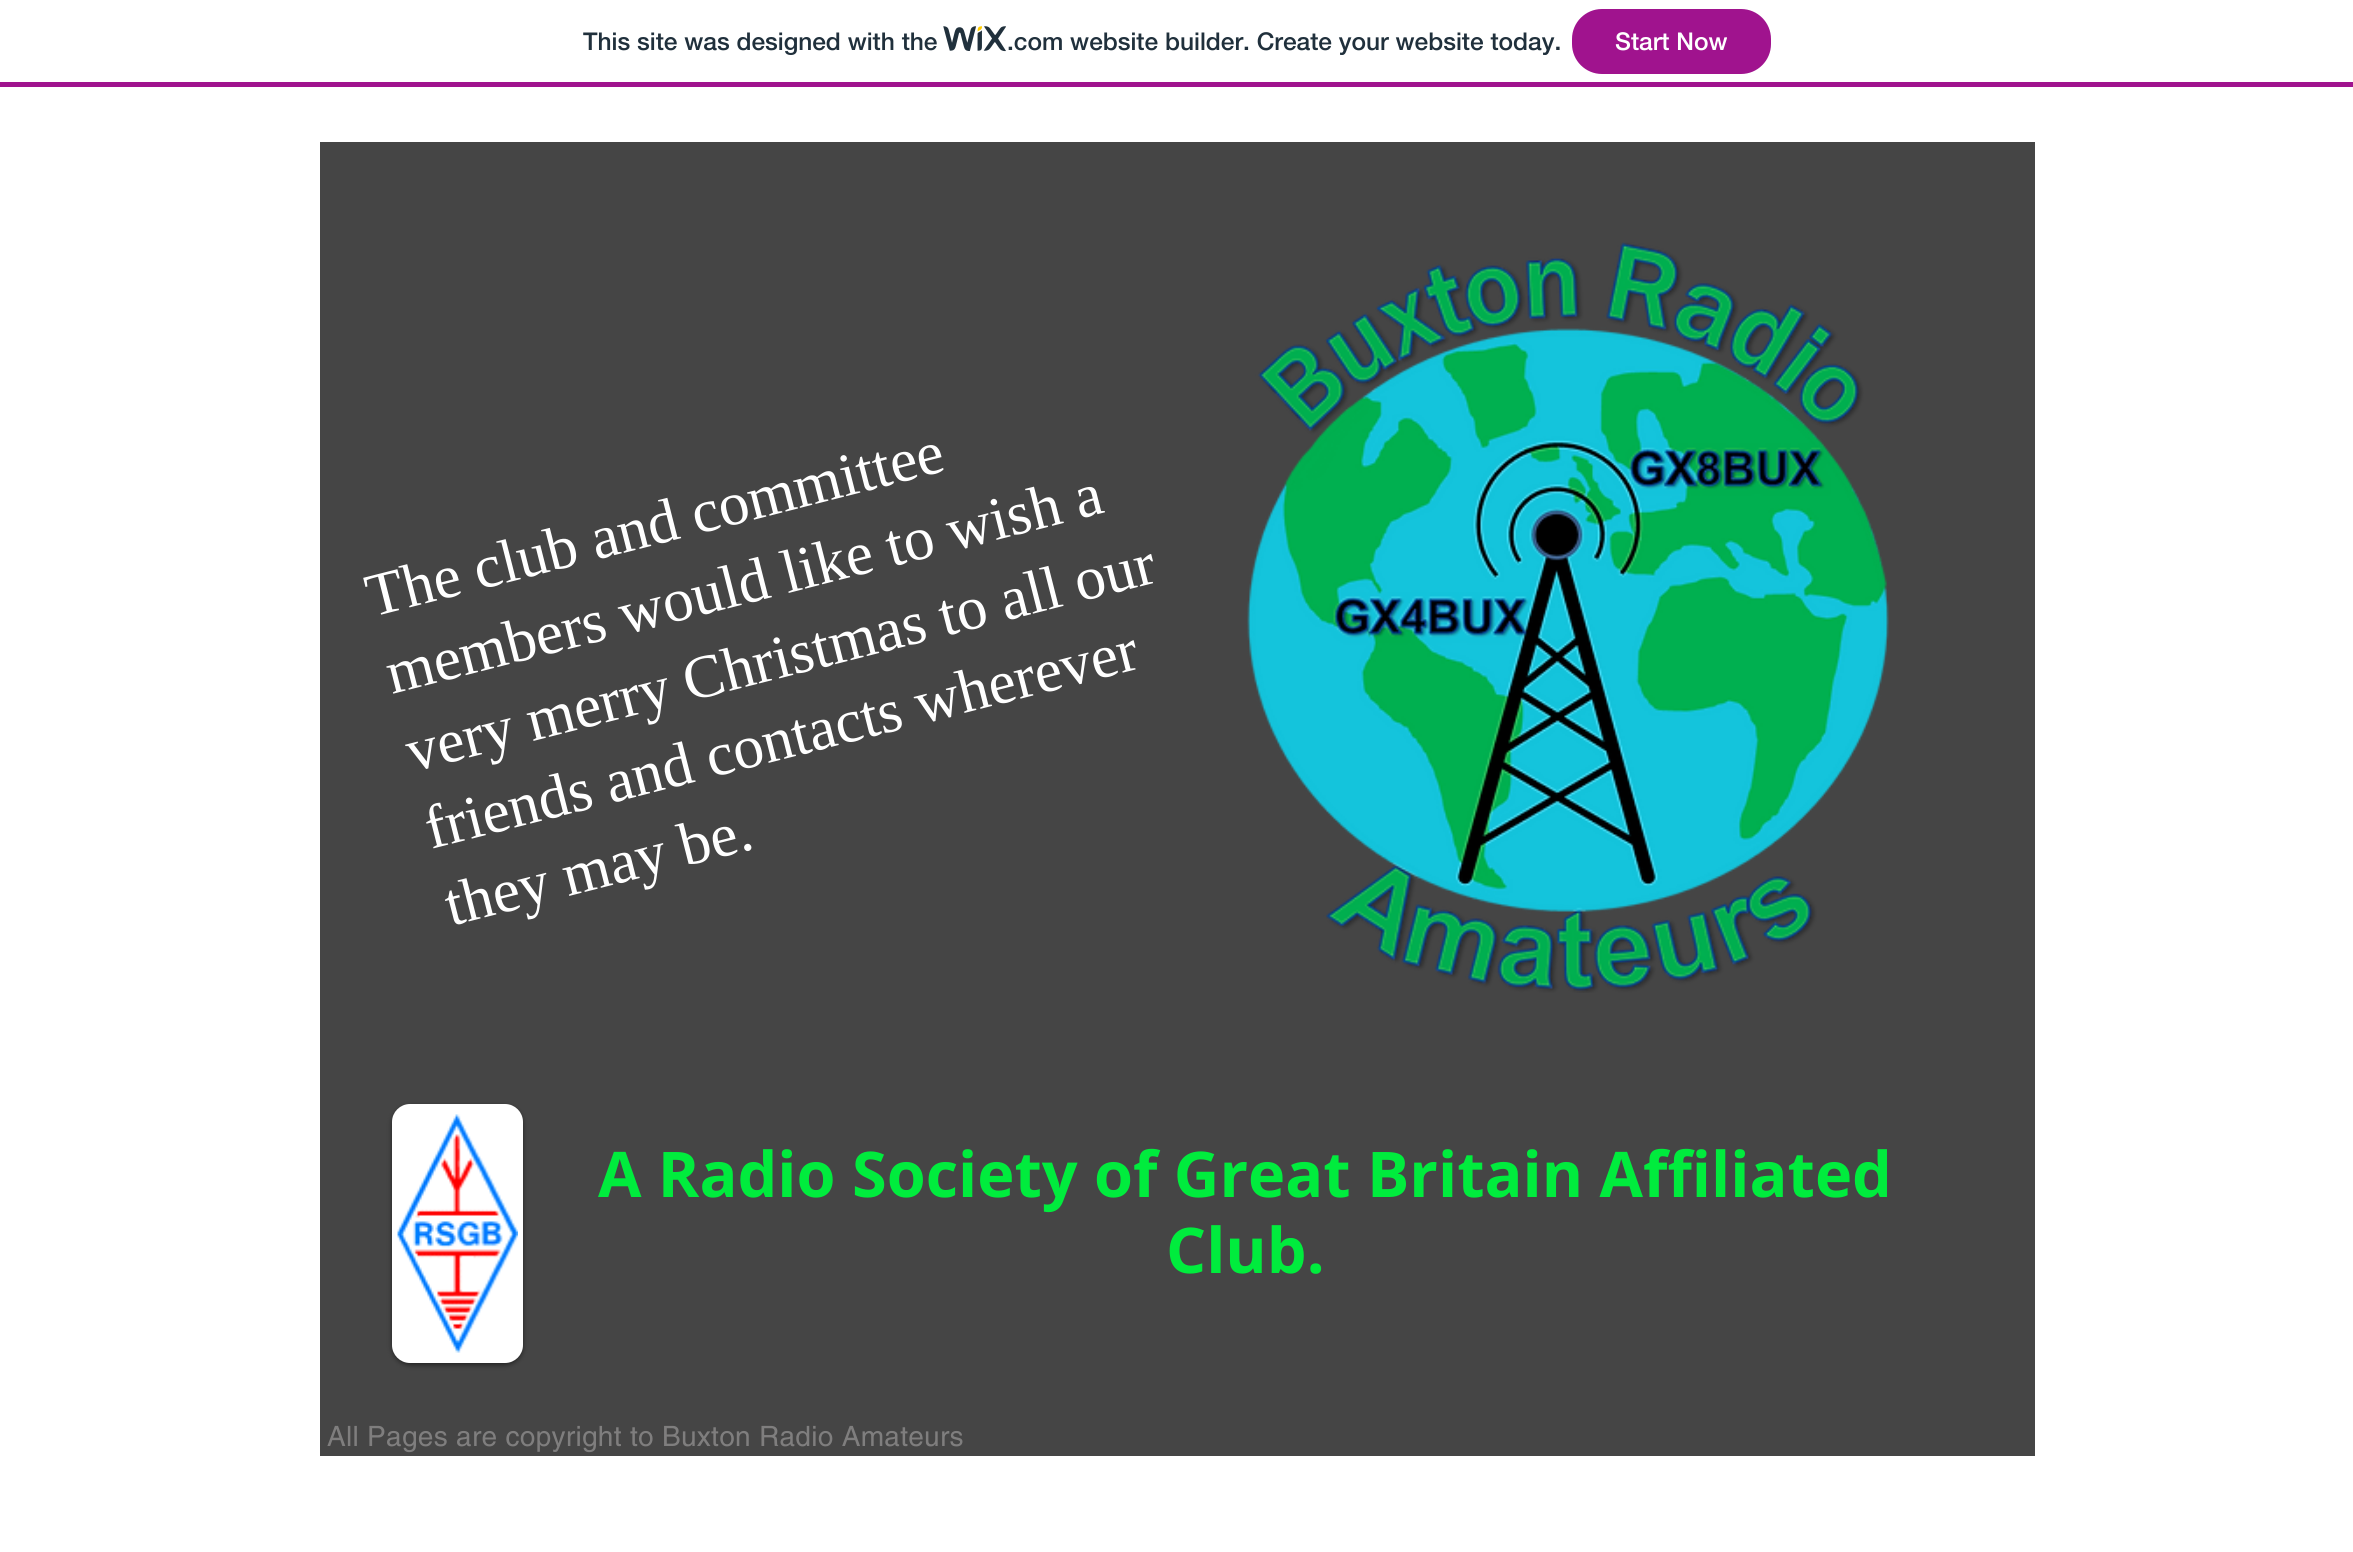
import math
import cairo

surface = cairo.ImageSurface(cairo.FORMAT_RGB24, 2353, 1552)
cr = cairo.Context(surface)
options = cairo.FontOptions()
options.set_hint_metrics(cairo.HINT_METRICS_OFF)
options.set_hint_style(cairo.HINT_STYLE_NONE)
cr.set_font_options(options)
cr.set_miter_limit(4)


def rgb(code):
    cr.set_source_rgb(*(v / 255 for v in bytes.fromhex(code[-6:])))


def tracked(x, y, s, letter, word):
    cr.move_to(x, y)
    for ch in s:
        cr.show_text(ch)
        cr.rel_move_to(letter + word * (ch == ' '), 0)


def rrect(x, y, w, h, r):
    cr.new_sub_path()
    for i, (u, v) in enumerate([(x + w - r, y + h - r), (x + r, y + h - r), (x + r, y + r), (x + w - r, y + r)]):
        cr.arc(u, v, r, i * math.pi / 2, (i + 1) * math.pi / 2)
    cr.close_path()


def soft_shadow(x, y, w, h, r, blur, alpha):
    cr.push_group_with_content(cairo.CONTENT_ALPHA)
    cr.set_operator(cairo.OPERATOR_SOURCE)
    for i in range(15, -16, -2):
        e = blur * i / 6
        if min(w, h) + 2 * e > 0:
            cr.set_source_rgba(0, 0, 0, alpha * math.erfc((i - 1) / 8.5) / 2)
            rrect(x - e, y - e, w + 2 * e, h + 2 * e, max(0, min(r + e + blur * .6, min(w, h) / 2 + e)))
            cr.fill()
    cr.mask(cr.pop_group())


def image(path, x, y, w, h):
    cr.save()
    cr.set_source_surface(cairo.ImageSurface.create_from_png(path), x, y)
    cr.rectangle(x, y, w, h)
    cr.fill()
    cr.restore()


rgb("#ffffff")
cr.paint()
rgb("#a0138e")
cr.rectangle(0, 82, 2353, 5)
cr.fill()
image("img/1.png", 943, 26, 63, 26)
rrect(1573, 10, 197, 63, 29)
cr.fill_preserve()
cr.stroke()
rgb("#454545")
cr.rectangle(320, 142, 1715, 1314)
cr.fill()
image("img/2.png", 1247, 242, 642, 751)
rgb("#000000")
soft_shadow(392, 1106, 131, 259, 18, 2.5, 0.5)
rgb("#ffffff")
rrect(394.5, 1106.5, 126, 254, 15.5)
cr.fill_preserve()
cr.set_line_width(5)
cr.stroke()
image("img/3.png", 397, 1114, 121, 239)
cr.select_font_face("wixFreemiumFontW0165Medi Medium")
cr.set_font_size(24.5)
rgb("#20303c")
cr.move_to(583, 50)
cr.show_text("This site was designed with the")
cr.move_to(1007, 50)
cr.show_text(".com website builder. Create your website today.")
rgb("#ffffff")
cr.move_to(1615, 50)
cr.show_text("Start Now")
cr.select_font_face("Liberation Serif")
cr.set_font_size(61.25)
cr.save()
cr.translate(372, 617)
cr.rotate(-14.3 * math.pi / 180)
cr.move_to(0, 0)
cr.show_text("The club and committee")
cr.restore()
cr.save()
cr.translate(392, 694)
cr.rotate(-14.3 * math.pi / 180)
cr.move_to(0, 0)
cr.show_text("members would like to wish a")
cr.restore()
cr.save()
cr.translate(412, 772)
cr.rotate(-14.3 * math.pi / 180)
cr.move_to(0, 0)
cr.show_text("very merry Christmas to all our")
cr.restore()
cr.save()
cr.translate(431, 849)
cr.rotate(-14.3 * math.pi / 180)
cr.move_to(0, 0)
cr.show_text("friends and contacts wherever")
cr.restore()
cr.save()
cr.translate(451, 926)
cr.rotate(-14.3 * math.pi / 180)
cr.move_to(0, 0)
cr.show_text("they may be.")
cr.restore()
cr.select_font_face("Open Sans", cairo.FONT_SLANT_NORMAL, cairo.FONT_WEIGHT_BOLD)
cr.set_font_size(63)
rgb("#00ec3d")
cr.move_to(598, 1197)
cr.show_text("A Radio Society of Great Britain Affiliated")
cr.move_to(1166, 1273)
cr.show_text("Club.")
cr.select_font_face("helvetica")
cr.set_font_size(28)
rgb("#7f7e7e")
tracked(327, 1446, "All Pages are copyright to Buxton Radio Amateurs", 0.3, 0)
surface.write_to_png("page.png")
